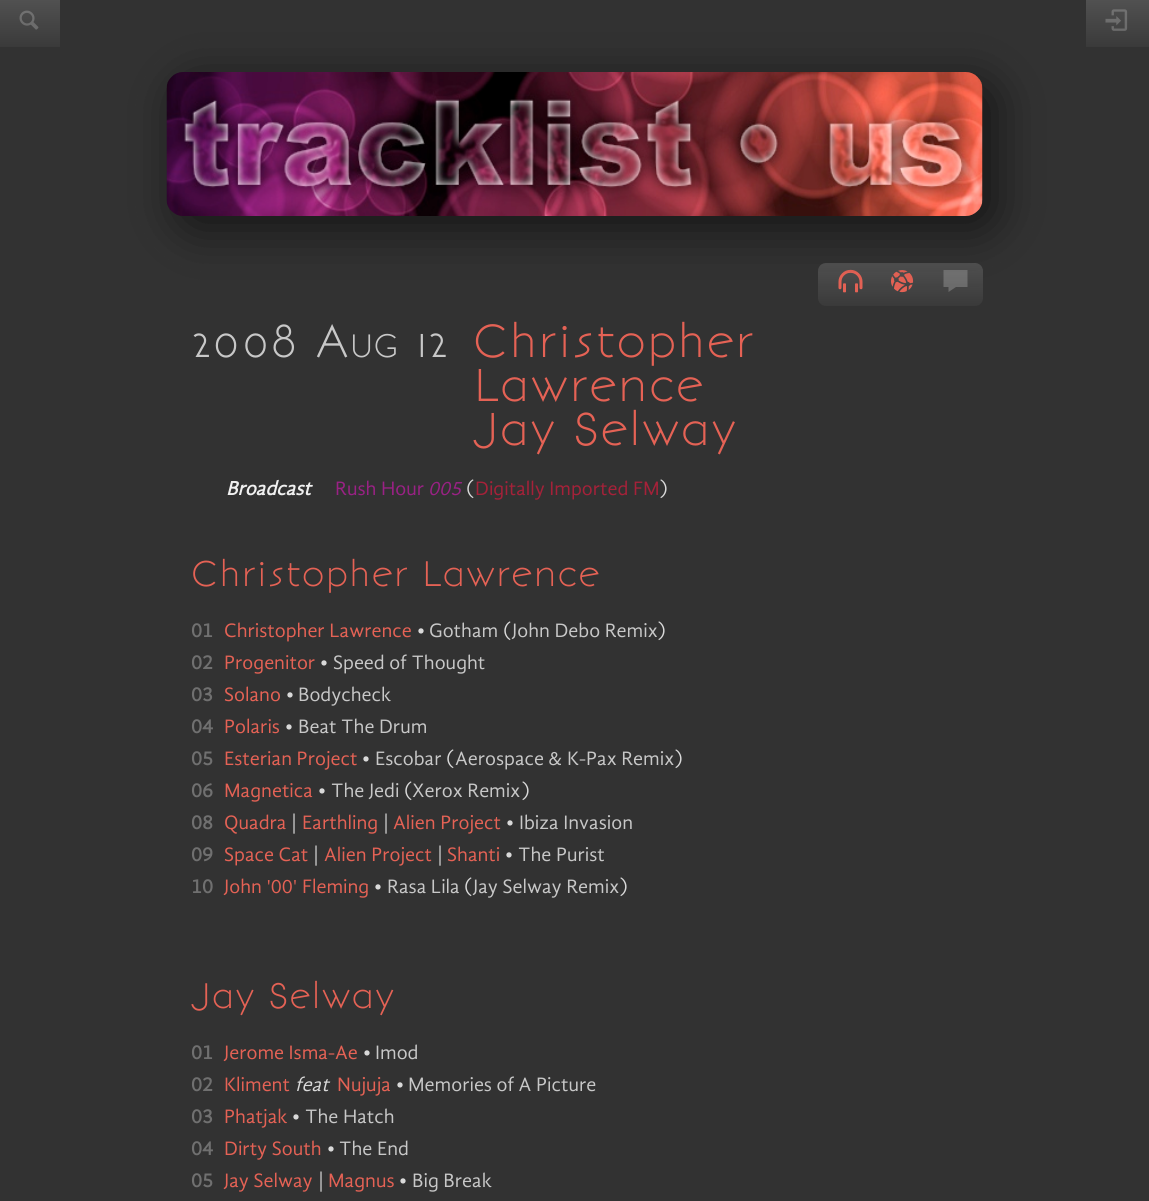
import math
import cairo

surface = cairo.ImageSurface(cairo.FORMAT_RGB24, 1149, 1201)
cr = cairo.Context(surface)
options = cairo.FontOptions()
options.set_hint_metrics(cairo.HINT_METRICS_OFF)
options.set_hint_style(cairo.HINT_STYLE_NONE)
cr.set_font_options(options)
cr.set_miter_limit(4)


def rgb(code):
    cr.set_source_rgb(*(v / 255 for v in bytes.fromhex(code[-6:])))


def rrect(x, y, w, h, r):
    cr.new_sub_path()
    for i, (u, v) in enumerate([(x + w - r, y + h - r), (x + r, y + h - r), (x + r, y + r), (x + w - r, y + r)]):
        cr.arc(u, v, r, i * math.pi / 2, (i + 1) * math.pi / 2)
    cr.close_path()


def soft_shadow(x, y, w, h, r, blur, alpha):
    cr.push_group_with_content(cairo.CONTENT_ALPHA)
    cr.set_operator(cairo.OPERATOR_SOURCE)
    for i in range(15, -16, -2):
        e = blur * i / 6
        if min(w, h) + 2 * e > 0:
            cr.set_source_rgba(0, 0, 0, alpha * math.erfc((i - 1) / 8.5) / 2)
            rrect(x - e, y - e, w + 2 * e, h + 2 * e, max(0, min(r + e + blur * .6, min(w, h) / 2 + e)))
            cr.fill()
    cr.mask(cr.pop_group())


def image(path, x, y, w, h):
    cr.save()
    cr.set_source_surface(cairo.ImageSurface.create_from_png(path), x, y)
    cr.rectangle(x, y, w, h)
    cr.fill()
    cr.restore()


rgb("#323232")
cr.paint()
gradient = cairo.LinearGradient(30, 0, 30, 47)
gradient.add_color_stop_rgba(0, 0.318, 0.318, 0.318, 1)
gradient.add_color_stop_rgba(1, 0.227, 0.227, 0.227, 1)
cr.set_source(gradient)
cr.rectangle(0, 0, 60, 47)
cr.fill()
image("img/1.png", 19, 10, 20, 20)
gradient = cairo.LinearGradient(1118, 0, 1118, 47)
gradient.add_color_stop_rgba(0, 0.318, 0.318, 0.318, 1)
gradient.add_color_stop_rgba(1, 0.227, 0.227, 0.227, 1)
cr.set_source(gradient)
cr.rectangle(1086, 0, 63, 47)
cr.fill()
image("img/2.png", 1105, 9, 23, 22)
gradient = cairo.LinearGradient(900, 263, 900, 306)
gradient.add_color_stop_rgba(0, 0.318, 0.318, 0.318, 1)
gradient.add_color_stop_rgba(1, 0.227, 0.227, 0.227, 1)
cr.set_source(gradient)
rrect(818, 263, 165, 43, 8)
cr.fill()
image("img/4.png", 838, 269, 25, 24)
image("img/5.png", 891, 270, 23, 23)
cr.set_source_rgba(0.784, 0.784, 0.784, 0.3)
cr.new_path()
cr.move_to(943.5, 287)
cr.line_to(943.5, 270)
cr.line_to(967.5, 270)
cr.line_to(967.5, 287)
cr.line_to(956, 287)
cr.line_to(948.5, 292)
cr.line_to(948.5, 287)
cr.close_path()
cr.fill()
rgb("#141414")
soft_shadow(179, 84, 816, 144, 17, 24, 1)
image("img/3.png", 166, 72, 817, 144)
cr.select_font_face("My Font")
cr.set_font_size(44)
rgb("#c8c8c8")
cr.move_to(191, 357)
cr.show_text("2008 A")
cr.set_font_size(31)
cr.move_to(349, 357)
cr.show_text("UG")
cr.set_font_size(44)
cr.move_to(415, 357)
cr.show_text("12")
rgb("#e56255")
for x, y, s in [
    (473, 357, "Christopher"),
    (473, 401, "Lawrence"),
    (473, 445, "Jay Selway"),
]:
    cr.move_to(x, y)
    cr.show_text(s)
cr.select_font_face("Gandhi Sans", cairo.FONT_SLANT_ITALIC, cairo.FONT_WEIGHT_BOLD)
cr.set_font_size(20)
rgb("#f0f0f0")
cr.move_to(226, 495)
cr.show_text("Broadcast")
cr.select_font_face("Gandhi Sans")
rgb("#9a2185")
cr.move_to(335, 495)
cr.show_text("Rush Hour")
cr.select_font_face("Gandhi Sans", cairo.FONT_SLANT_ITALIC)
cr.move_to(428, 495)
cr.show_text("005")
cr.select_font_face("Gandhi Sans")
rgb("#d9d9d9")
cr.move_to(466, 495)
cr.show_text("(")
rgb("#a62139")
cr.move_to(475, 495)
cr.show_text("Digitally Imported FM")
rgb("#d9d9d9")
cr.move_to(659, 495)
cr.show_text(")")
cr.select_font_face("My Font")
cr.set_font_size(34)
rgb("#e56255")
cr.move_to(191, 586)
cr.show_text("Christopher Lawrence")
cr.select_font_face("Gandhi Sans", cairo.FONT_SLANT_NORMAL, cairo.FONT_WEIGHT_BOLD)
cr.set_font_size(20)
rgb("#707070")
cr.move_to(191, 637)
cr.show_text("01")
cr.select_font_face("Gandhi Sans")
rgb("#e56255")
cr.move_to(224, 637)
cr.show_text("Christopher Lawrence")
rgb("#d9d9d9")
cr.move_to(417, 637)
cr.show_text("•")
rgb("#c8c8c8")
cr.move_to(429, 637)
cr.show_text("Gotham")
rgb("#d9d9d9")
cr.move_to(503, 637)
cr.show_text("(")
rgb("#c8c8c8")
cr.move_to(512, 637)
cr.show_text("John Debo Remix")
rgb("#d9d9d9")
cr.move_to(657, 637)
cr.show_text(")")
cr.select_font_face("Gandhi Sans", cairo.FONT_SLANT_NORMAL, cairo.FONT_WEIGHT_BOLD)
rgb("#707070")
cr.move_to(191, 669)
cr.show_text("02")
cr.select_font_face("Gandhi Sans")
rgb("#e56255")
cr.move_to(224, 669)
cr.show_text("Progenitor")
rgb("#d9d9d9")
cr.move_to(320, 669)
cr.show_text("•")
rgb("#c8c8c8")
cr.move_to(333, 669)
cr.show_text("Speed of Thought")
cr.select_font_face("Gandhi Sans", cairo.FONT_SLANT_NORMAL, cairo.FONT_WEIGHT_BOLD)
rgb("#707070")
cr.move_to(191, 701)
cr.show_text("03")
cr.select_font_face("Gandhi Sans")
rgb("#e56255")
cr.move_to(224, 701)
cr.show_text("Solano")
rgb("#d9d9d9")
cr.move_to(286, 701)
cr.show_text("•")
rgb("#c8c8c8")
cr.move_to(298, 701)
cr.show_text("Bodycheck")
cr.select_font_face("Gandhi Sans", cairo.FONT_SLANT_NORMAL, cairo.FONT_WEIGHT_BOLD)
rgb("#707070")
cr.move_to(191, 733)
cr.show_text("04")
cr.select_font_face("Gandhi Sans")
rgb("#e56255")
cr.move_to(224, 733)
cr.show_text("Polaris")
rgb("#d9d9d9")
cr.move_to(285, 733)
cr.show_text("•")
rgb("#c8c8c8")
cr.move_to(298, 733)
cr.show_text("Beat The Drum")
cr.select_font_face("Gandhi Sans", cairo.FONT_SLANT_NORMAL, cairo.FONT_WEIGHT_BOLD)
rgb("#707070")
cr.move_to(191, 765)
cr.show_text("05")
cr.select_font_face("Gandhi Sans")
rgb("#e56255")
cr.move_to(224, 765)
cr.show_text("Esterian Project")
rgb("#d9d9d9")
cr.move_to(362, 765)
cr.show_text("•")
rgb("#c8c8c8")
cr.move_to(375, 765)
cr.show_text("Escobar")
rgb("#d9d9d9")
cr.move_to(446, 765)
cr.show_text("(")
rgb("#c8c8c8")
cr.move_to(455, 765)
cr.show_text("Aerospace & K-Pax Remix")
rgb("#d9d9d9")
cr.move_to(674, 765)
cr.show_text(")")
cr.select_font_face("Gandhi Sans", cairo.FONT_SLANT_NORMAL, cairo.FONT_WEIGHT_BOLD)
rgb("#707070")
cr.move_to(191, 797)
cr.show_text("06")
cr.select_font_face("Gandhi Sans")
rgb("#e56255")
cr.move_to(224, 797)
cr.show_text("Magnetica")
rgb("#d9d9d9")
cr.move_to(318, 797)
cr.show_text("•")
rgb("#c8c8c8")
cr.move_to(331, 797)
cr.show_text("The Jedi")
rgb("#d9d9d9")
cr.move_to(404, 797)
cr.show_text("(")
rgb("#c8c8c8")
cr.move_to(412, 797)
cr.show_text("Xerox Remix")
rgb("#d9d9d9")
cr.move_to(521, 797)
cr.show_text(")")
cr.select_font_face("Gandhi Sans", cairo.FONT_SLANT_NORMAL, cairo.FONT_WEIGHT_BOLD)
rgb("#707070")
cr.move_to(191, 829)
cr.show_text("08")
cr.select_font_face("Gandhi Sans")
rgb("#e56255")
cr.move_to(224, 829)
cr.show_text("Quadra")
rgb("#d9d9d9")
cr.move_to(291, 829)
cr.show_text("|")
rgb("#e56255")
cr.move_to(302, 829)
cr.show_text("Earthling")
rgb("#d9d9d9")
cr.move_to(383, 829)
cr.show_text("|")
rgb("#e56255")
cr.move_to(393, 829)
cr.show_text("Alien Project")
rgb("#d9d9d9")
cr.move_to(506, 829)
cr.show_text("•")
rgb("#c8c8c8")
cr.move_to(519, 829)
cr.show_text("Ibiza Invasion")
cr.select_font_face("Gandhi Sans", cairo.FONT_SLANT_NORMAL, cairo.FONT_WEIGHT_BOLD)
rgb("#707070")
cr.move_to(191, 861)
cr.show_text("09")
cr.select_font_face("Gandhi Sans")
rgb("#e56255")
cr.move_to(224, 861)
cr.show_text("Space Cat")
rgb("#d9d9d9")
cr.move_to(313, 861)
cr.show_text("|")
rgb("#e56255")
cr.move_to(324, 861)
cr.show_text("Alien Project")
rgb("#d9d9d9")
cr.move_to(437, 861)
cr.show_text("|")
rgb("#e56255")
cr.move_to(447, 861)
cr.show_text("Shanti")
rgb("#d9d9d9")
cr.move_to(505, 861)
cr.show_text("•")
rgb("#c8c8c8")
cr.move_to(518, 861)
cr.show_text("The Purist")
cr.select_font_face("Gandhi Sans", cairo.FONT_SLANT_NORMAL, cairo.FONT_WEIGHT_BOLD)
rgb("#707070")
cr.move_to(191, 893)
cr.show_text("10")
cr.select_font_face("Gandhi Sans")
rgb("#e56255")
cr.move_to(224, 893)
cr.show_text("John '00' Fleming")
rgb("#d9d9d9")
cr.move_to(374, 893)
cr.show_text("•")
rgb("#c8c8c8")
cr.move_to(387, 893)
cr.show_text("Rasa Lila")
rgb("#d9d9d9")
cr.move_to(464, 893)
cr.show_text("(")
rgb("#c8c8c8")
cr.move_to(473, 893)
cr.show_text("Jay Selway Remix")
rgb("#d9d9d9")
cr.move_to(619, 893)
cr.show_text(")")
cr.select_font_face("My Font")
cr.set_font_size(34)
rgb("#e56255")
cr.move_to(191, 1008)
cr.show_text("Jay Selway")
cr.select_font_face("Gandhi Sans", cairo.FONT_SLANT_NORMAL, cairo.FONT_WEIGHT_BOLD)
cr.set_font_size(20)
rgb("#707070")
cr.move_to(191, 1059)
cr.show_text("01")
cr.select_font_face("Gandhi Sans")
rgb("#e56255")
cr.move_to(224, 1059)
cr.show_text("Jerome Isma-Ae")
rgb("#d9d9d9")
cr.move_to(363, 1059)
cr.show_text("•")
rgb("#c8c8c8")
cr.move_to(375, 1059)
cr.show_text("Imod")
cr.select_font_face("Gandhi Sans", cairo.FONT_SLANT_NORMAL, cairo.FONT_WEIGHT_BOLD)
rgb("#707070")
cr.move_to(191, 1091)
cr.show_text("02")
cr.select_font_face("Gandhi Sans")
rgb("#e56255")
cr.move_to(224, 1091)
cr.show_text("Kliment")
cr.select_font_face("Gandhi Sans", cairo.FONT_SLANT_ITALIC)
rgb("#d9d9d9")
cr.move_to(295, 1091)
cr.show_text("feat")
cr.select_font_face("Gandhi Sans")
rgb("#e56255")
cr.move_to(337, 1091)
cr.show_text("Nujuja")
rgb("#d9d9d9")
cr.move_to(396, 1091)
cr.show_text("•")
rgb("#c8c8c8")
cr.move_to(408, 1091)
cr.show_text("Memories of A Picture")
cr.select_font_face("Gandhi Sans", cairo.FONT_SLANT_NORMAL, cairo.FONT_WEIGHT_BOLD)
rgb("#707070")
cr.move_to(191, 1123)
cr.show_text("03")
cr.select_font_face("Gandhi Sans")
rgb("#e56255")
cr.move_to(224, 1123)
cr.show_text("Phatjak")
rgb("#d9d9d9")
cr.move_to(292, 1123)
cr.show_text("•")
rgb("#c8c8c8")
cr.move_to(305, 1123)
cr.show_text("The Hatch")
cr.select_font_face("Gandhi Sans", cairo.FONT_SLANT_NORMAL, cairo.FONT_WEIGHT_BOLD)
rgb("#707070")
cr.move_to(191, 1155)
cr.show_text("04")
cr.select_font_face("Gandhi Sans")
rgb("#e56255")
cr.move_to(224, 1155)
cr.show_text("Dirty South")
rgb("#d9d9d9")
cr.move_to(327, 1155)
cr.show_text("•")
rgb("#c8c8c8")
cr.move_to(339, 1155)
cr.show_text("The End")
cr.select_font_face("Gandhi Sans", cairo.FONT_SLANT_NORMAL, cairo.FONT_WEIGHT_BOLD)
rgb("#707070")
cr.move_to(191, 1187)
cr.show_text("05")
cr.select_font_face("Gandhi Sans")
rgb("#e56255")
cr.move_to(224, 1187)
cr.show_text("Jay Selway")
rgb("#d9d9d9")
cr.move_to(318, 1187)
cr.show_text("|")
rgb("#e56255")
cr.move_to(328, 1187)
cr.show_text("Magnus")
rgb("#d9d9d9")
cr.move_to(399, 1187)
cr.show_text("•")
rgb("#c8c8c8")
cr.move_to(412, 1187)
cr.show_text("Big Break")
surface.write_to_png("page.png")
